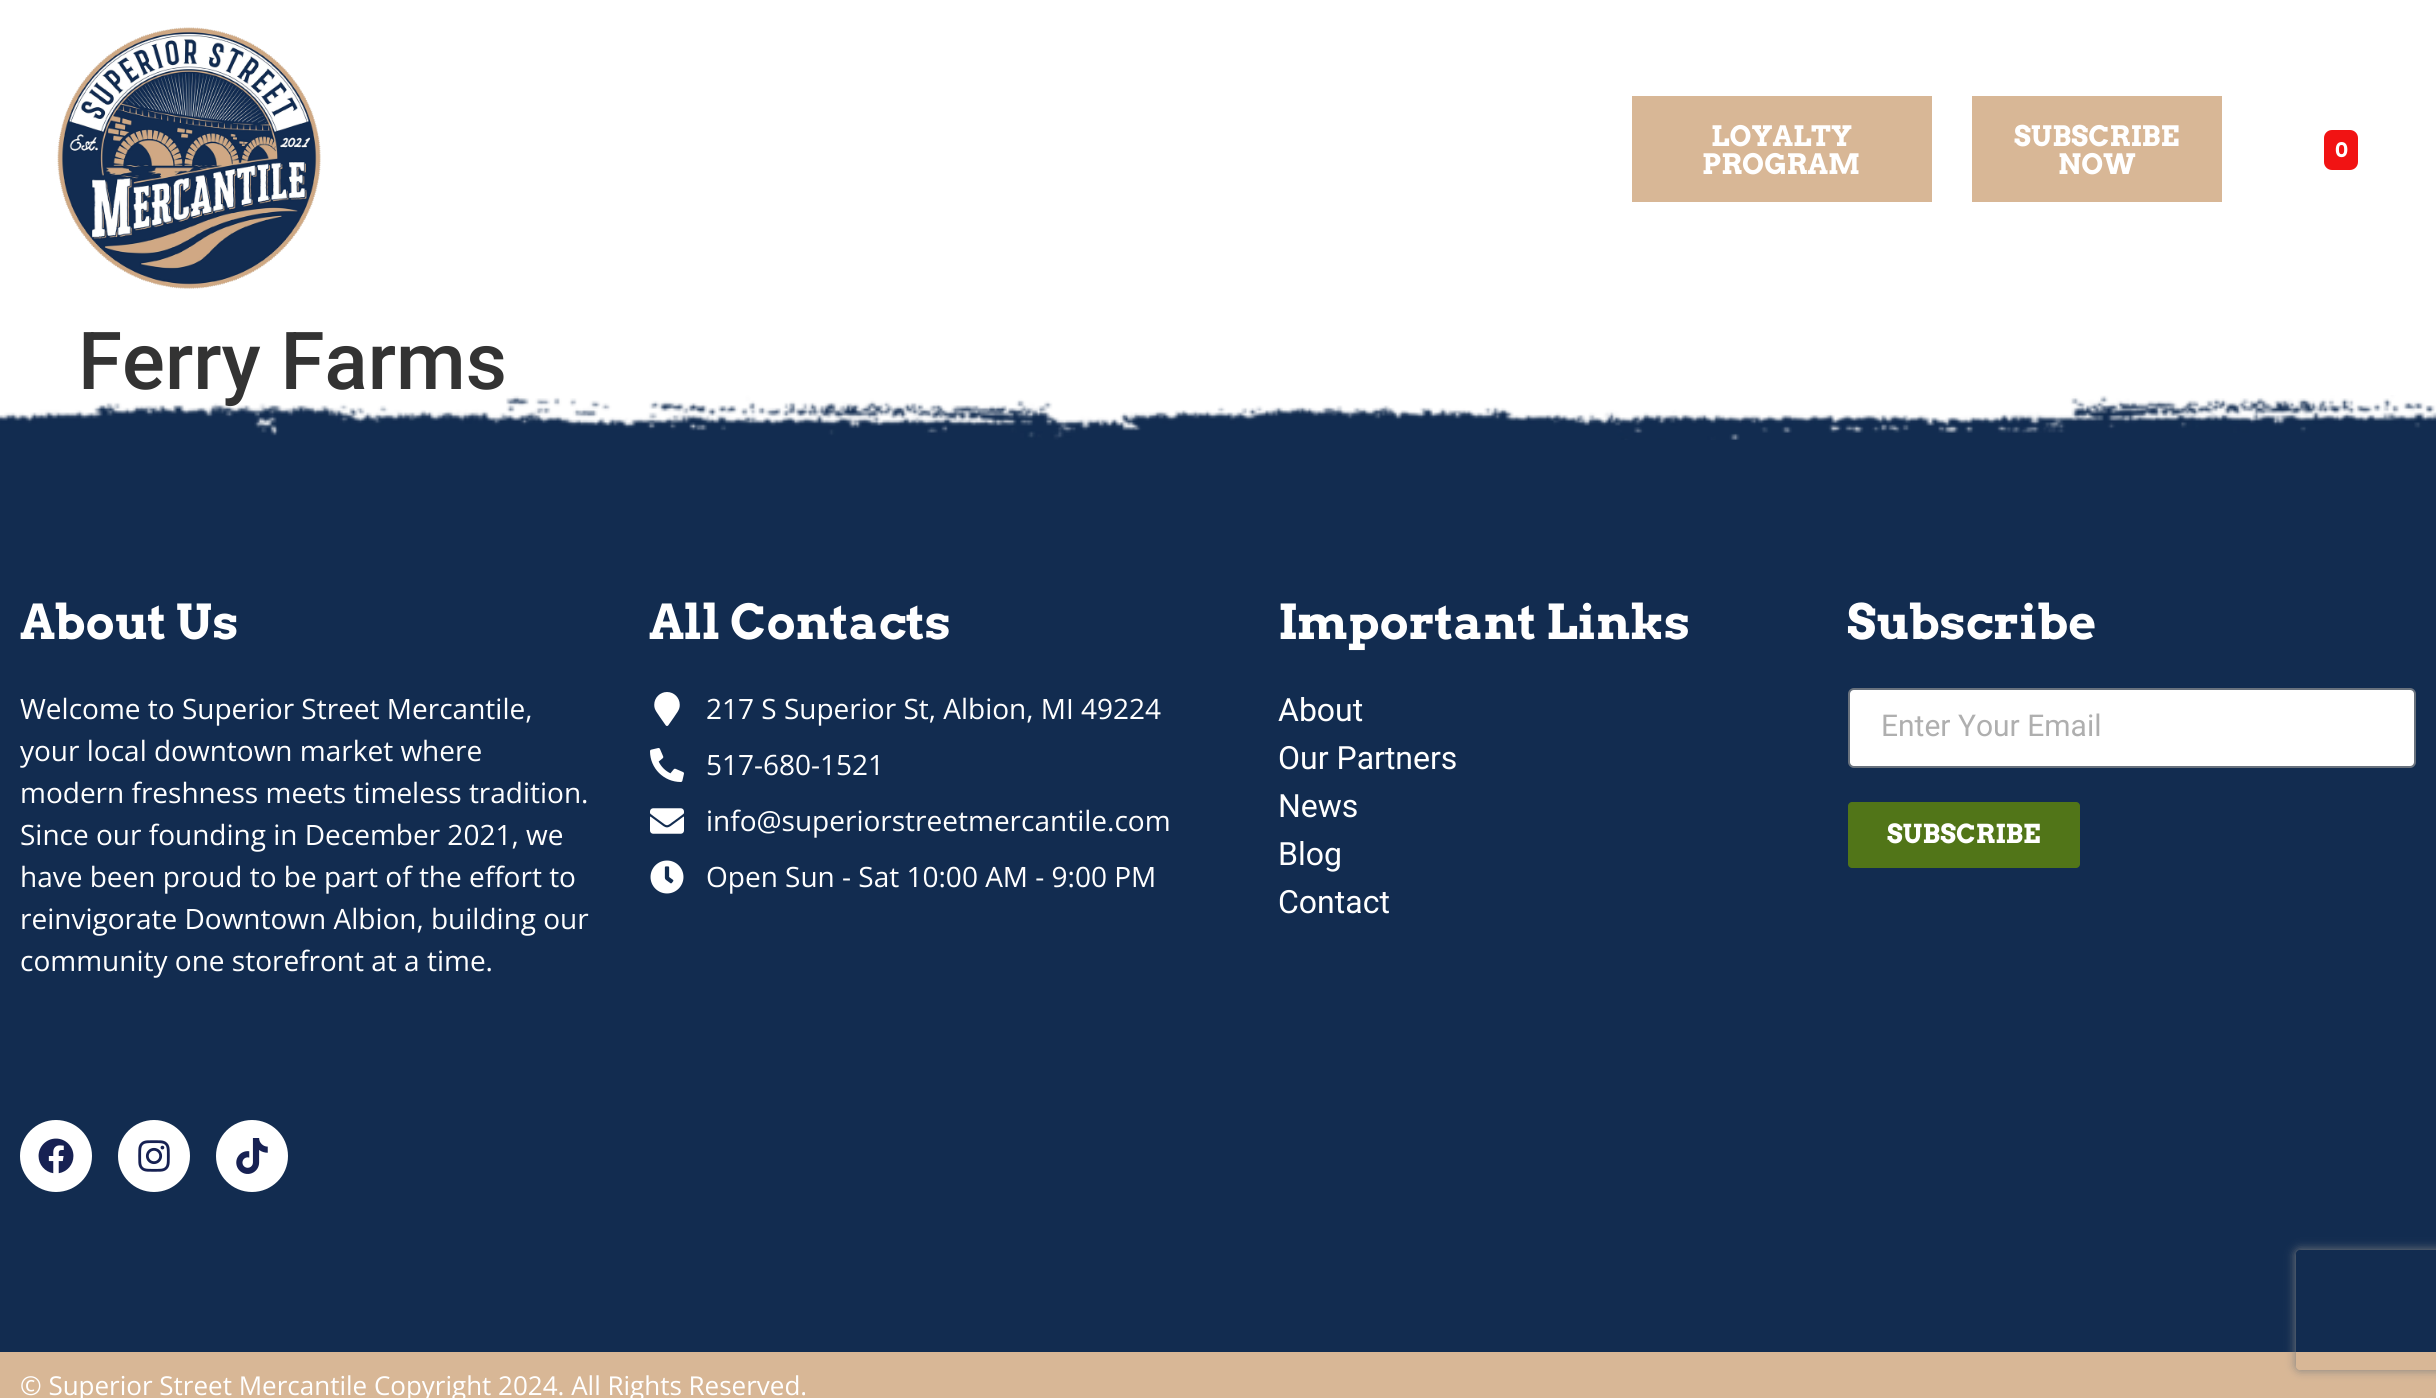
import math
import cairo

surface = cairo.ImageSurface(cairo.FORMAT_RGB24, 2436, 1398)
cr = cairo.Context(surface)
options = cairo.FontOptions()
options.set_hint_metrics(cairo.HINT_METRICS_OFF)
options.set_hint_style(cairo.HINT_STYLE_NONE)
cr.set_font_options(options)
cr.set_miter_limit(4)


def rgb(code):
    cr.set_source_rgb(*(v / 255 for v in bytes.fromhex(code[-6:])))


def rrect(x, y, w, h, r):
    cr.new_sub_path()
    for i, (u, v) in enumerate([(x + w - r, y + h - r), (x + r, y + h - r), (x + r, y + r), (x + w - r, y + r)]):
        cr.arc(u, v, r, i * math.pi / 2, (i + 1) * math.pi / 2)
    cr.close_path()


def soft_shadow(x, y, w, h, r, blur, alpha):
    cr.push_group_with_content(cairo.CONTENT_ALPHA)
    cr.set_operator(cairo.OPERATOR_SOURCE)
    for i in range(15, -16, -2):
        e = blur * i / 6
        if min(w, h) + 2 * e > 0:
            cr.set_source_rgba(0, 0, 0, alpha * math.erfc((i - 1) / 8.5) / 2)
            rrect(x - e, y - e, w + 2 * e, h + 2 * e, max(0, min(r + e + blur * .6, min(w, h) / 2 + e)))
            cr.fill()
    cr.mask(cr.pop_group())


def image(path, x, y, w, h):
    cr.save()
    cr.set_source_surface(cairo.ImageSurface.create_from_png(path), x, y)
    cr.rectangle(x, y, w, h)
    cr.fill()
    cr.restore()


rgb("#ffffff")
cr.paint()
image("img/1.png", 57, 27, 264, 262)
rgb("#d8b796")
cr.rectangle(1632, 96, 300, 106)
cr.fill()
cr.rectangle(1972, 96, 250, 106)
cr.fill()
rgb("#f11313")
rrect(2324, 130, 34, 40, 8)
cr.fill()
rgb("#122c50")
cr.rectangle(0, 440, 2436, 912)
cr.fill()
rgb("#ffffff")
cr.arc(56, 1156, 36, 0, 2 * math.pi)
cr.fill()
image("img/3.png", 38, 1138, 36, 36)
cr.arc(154, 1156, 36, 0, 2 * math.pi)
cr.fill()
image("img/4.png", 138, 1140, 32, 32)
cr.arc(252, 1156, 36, 0, 2 * math.pi)
cr.fill()
image("img/5.png", 236, 1138, 32, 36)
image("img/6.png", 654, 692, 26, 34)
image("img/7.png", 650, 748, 34, 34)
image("img/8.png", 650, 808, 34, 26)
image("img/9.png", 650, 860, 34, 34)
rrect(1849, 689, 566, 78, 5)
cr.fill_preserve()
rgb("#69727d")
cr.stroke()
rgb("#517518")
rrect(1848, 802, 232, 66, 4)
cr.fill()
rgb("#d8b796")
cr.rectangle(0, 1352, 2436, 46)
cr.fill()
cr.save()
cr.set_fill_rule(cairo.FILL_RULE_EVEN_ODD)
cr.new_path()
cr.move_to(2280, 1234)
cr.line_to(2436, 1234)
cr.line_to(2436, 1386)
cr.line_to(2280, 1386)
cr.close_path()
cr.move_to(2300, 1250)
cr.line_to(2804, 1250)
cr.curve_to(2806, 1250, 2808, 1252, 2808, 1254)
cr.line_to(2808, 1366)
cr.curve_to(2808, 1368, 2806, 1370, 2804, 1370)
cr.line_to(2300, 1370)
cr.curve_to(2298, 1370, 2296, 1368, 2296, 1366)
cr.line_to(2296, 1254)
cr.curve_to(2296, 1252, 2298, 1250, 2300, 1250)
cr.close_path()
cr.clip()
rgb("#808080")
soft_shadow(2296, 1250, 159, 120, 4, 5, 1)
cr.restore()
cr.select_font_face("Arvo", cairo.FONT_SLANT_NORMAL, cairo.FONT_WEIGHT_BOLD)
cr.set_font_size(28)
rgb("#ffffff")
for x, y, s in [
    (1711, 146, "LOYALTY"),
    (1702, 174, "PROGRAM"),
    (2014, 146, "SUBSCRIBE"),
    (2058, 174, "NOW"),
]:
    cr.move_to(x, y)
    cr.show_text(s)
cr.set_font_size(20)
cr.move_to(2335, 157)
cr.show_text("0")
cr.select_font_face("Roboto Medium")
cr.set_font_size(80)
rgb("#333333")
cr.move_to(78, 389)
cr.show_text("Ferry Farms")
image("img/2.png", 0, 395, 2436, 45)
cr.select_font_face("Arvo", cairo.FONT_SLANT_NORMAL, cairo.FONT_WEIGHT_BOLD)
cr.set_font_size(48)
rgb("#ffffff")
cr.move_to(20, 639)
cr.show_text("About Us")
cr.select_font_face("Open Sans")
cr.set_font_size(28)
for x, y, s in [
    (20, 719, "Welcome to Superior Street Mercantile,"),
    (20, 761, "your local downtown market where"),
    (20, 803, "modern freshness meets timeless tradition."),
    (20, 845, "Since our founding in December 2021, we"),
    (20, 887, "have been proud to be part of the effort to"),
    (20, 929, "reinvigorate Downtown Albion, building our"),
    (20, 971, "community one storefront at a time."),
]:
    cr.move_to(x, y)
    cr.show_text(s)
cr.select_font_face("Arvo", cairo.FONT_SLANT_NORMAL, cairo.FONT_WEIGHT_BOLD)
cr.set_font_size(48)
cr.move_to(649, 639)
cr.show_text("All Contacts")
cr.select_font_face("Open Sans")
cr.set_font_size(28)
for x, y, s in [
    (706, 719, "217 S Superior St, Albion, MI 49224"),
    (706, 775, "517-680-1521"),
    (706, 831, "info@superiorstreetmercantile.com"),
    (706, 887, "Open Sun - Sat 10:00 AM - 9:00 PM"),
]:
    cr.move_to(x, y)
    cr.show_text(s)
cr.select_font_face("Arvo", cairo.FONT_SLANT_NORMAL, cairo.FONT_WEIGHT_BOLD)
cr.set_font_size(48)
cr.move_to(1278, 639)
cr.show_text("Important Links")
cr.select_font_face("Roboto")
cr.set_font_size(32)
for x, y, s in [
    (1278, 721, "About"),
    (1278, 769, "Our Partners"),
    (1278, 817, "News"),
    (1278, 865, "Blog"),
    (1278, 913, "Contact"),
]:
    cr.move_to(x, y)
    cr.show_text(s)
cr.select_font_face("Arvo", cairo.FONT_SLANT_NORMAL, cairo.FONT_WEIGHT_BOLD)
cr.set_font_size(48)
cr.move_to(1847, 639)
cr.show_text("Subscribe")
cr.select_font_face("Roboto")
cr.set_font_size(30)
rgb("#afafaf")
cr.move_to(1881, 736)
cr.show_text("Enter Your Email")
cr.select_font_face("Arvo", cairo.FONT_SLANT_NORMAL, cairo.FONT_WEIGHT_BOLD)
cr.set_font_size(26)
rgb("#ffffff")
cr.move_to(1887, 843)
cr.show_text("SUBSCRIBE")
cr.select_font_face("Open Sans")
cr.move_to(20, 1395)
cr.show_text("© Superior Street Mercantile Copyright 2024. All Rights Reserved.")
surface.write_to_png("page.png")
